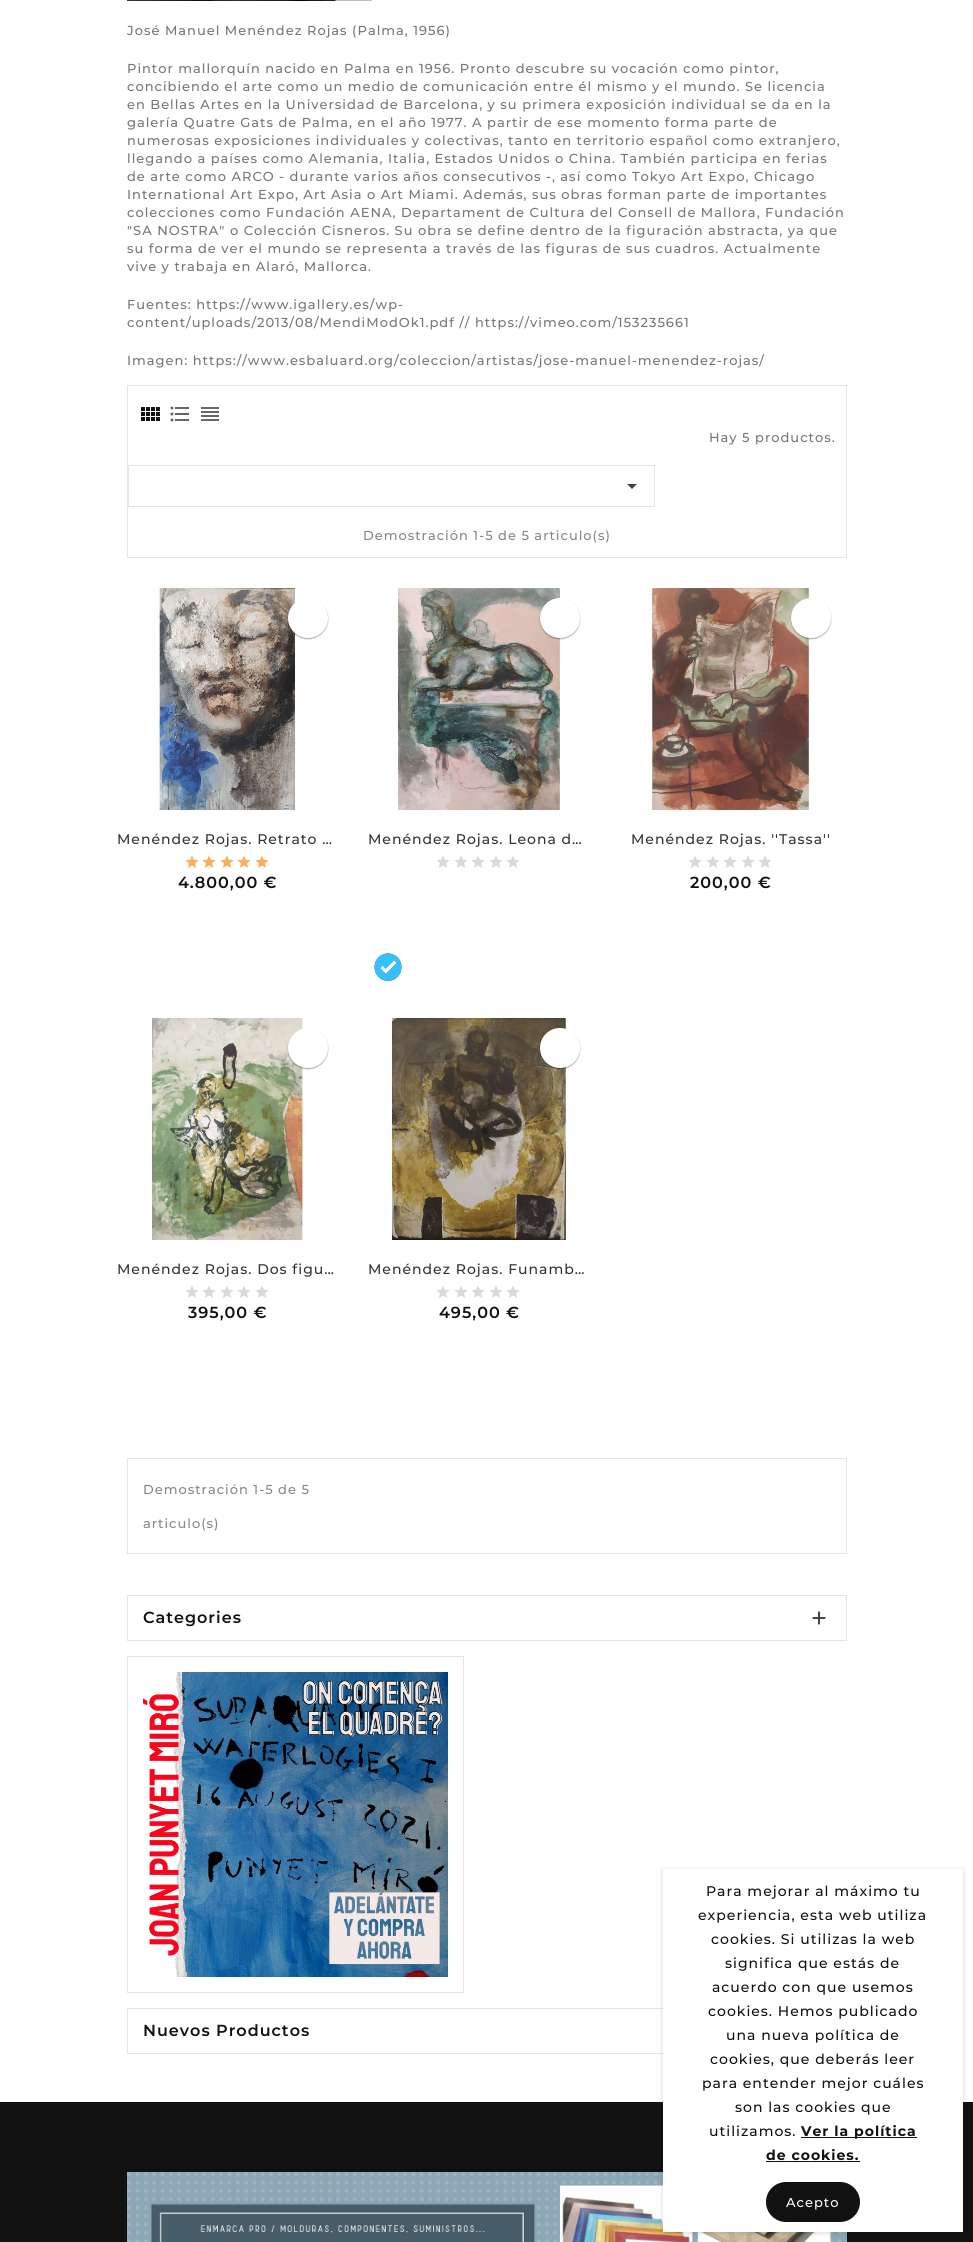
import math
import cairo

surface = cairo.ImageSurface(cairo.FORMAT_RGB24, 973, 2242)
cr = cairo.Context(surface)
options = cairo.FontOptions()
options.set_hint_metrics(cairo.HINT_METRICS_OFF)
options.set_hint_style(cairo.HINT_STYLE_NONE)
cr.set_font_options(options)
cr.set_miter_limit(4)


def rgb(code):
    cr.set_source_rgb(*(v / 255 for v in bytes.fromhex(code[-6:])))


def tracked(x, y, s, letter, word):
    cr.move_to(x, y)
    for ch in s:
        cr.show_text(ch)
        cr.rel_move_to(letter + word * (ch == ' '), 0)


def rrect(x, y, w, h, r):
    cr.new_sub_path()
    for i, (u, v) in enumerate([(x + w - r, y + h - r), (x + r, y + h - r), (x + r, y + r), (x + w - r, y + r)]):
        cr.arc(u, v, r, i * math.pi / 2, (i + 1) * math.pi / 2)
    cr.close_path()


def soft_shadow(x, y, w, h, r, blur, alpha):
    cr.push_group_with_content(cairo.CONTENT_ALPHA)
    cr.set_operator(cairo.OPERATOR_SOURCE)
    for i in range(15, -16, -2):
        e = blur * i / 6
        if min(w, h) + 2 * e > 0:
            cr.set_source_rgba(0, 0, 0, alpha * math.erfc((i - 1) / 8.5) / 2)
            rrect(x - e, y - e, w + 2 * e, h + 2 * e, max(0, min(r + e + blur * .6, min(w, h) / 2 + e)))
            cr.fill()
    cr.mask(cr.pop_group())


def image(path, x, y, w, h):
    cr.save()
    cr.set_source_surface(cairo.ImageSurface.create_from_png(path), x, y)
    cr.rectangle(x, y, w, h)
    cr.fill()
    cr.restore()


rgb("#ffffff")
cr.paint()
image("img/1.png", 127, 0, 245, 1)
cr.rectangle(127.5, 385.5, 719, 172)
rgb("#e5e5e5")
cr.set_line_width(1)
cr.stroke()
image("img/2.png", 141, 407, 19, 14)
image("img/3.png", 170, 406, 19, 16)
image("img/4.png", 201, 407, 18, 14)
cr.rectangle(128.5, 465.5, 526, 41)
cr.stroke()
rgb("#414141")
cr.new_path()
cr.move_to(627, 484)
cr.line_to(637, 484)
cr.line_to(632, 489)
cr.close_path()
cr.fill()
image("img/5.png", 156, 588, 141, 222)
rgb("#000000")
soft_shadow(288, 599, 40, 40, 20, 0.5, 0.24)
soft_shadow(288, 599, 40, 40, 20, 1, 0.12)
rgb("#ffffff")
cr.arc(308, 618, 20, 0, 2 * math.pi)
cr.fill()
image("img/6.png", 185, 855, 14, 13)
image("img/6.png", 202, 855, 14, 13)
image("img/6.png", 220, 855, 14, 13)
image("img/6.png", 237, 855, 14, 13)
image("img/6.png", 255, 855, 14, 13)
image("img/7.png", 396, 588, 166, 222)
rgb("#000000")
soft_shadow(540, 599, 40, 40, 20, 0.5, 0.24)
soft_shadow(540, 599, 40, 40, 20, 1, 0.12)
rgb("#ffffff")
cr.arc(560, 618, 20, 0, 2 * math.pi)
cr.fill()
image("img/8.png", 436, 856, 14, 12)
image("img/8.png", 454, 856, 14, 12)
image("img/8.png", 471, 856, 14, 12)
image("img/8.png", 489, 856, 14, 12)
image("img/8.png", 506, 856, 14, 12)
image("img/9.png", 374, 953, 28, 28)
image("img/10.png", 647, 588, 163, 222)
rgb("#000000")
soft_shadow(791, 599, 40, 40, 20, 0.5, 0.24)
soft_shadow(791, 599, 40, 40, 20, 1, 0.12)
rgb("#ffffff")
cr.arc(811, 618, 20, 0, 2 * math.pi)
cr.fill()
image("img/8.png", 688, 856, 14, 12)
image("img/8.png", 706, 856, 14, 12)
image("img/8.png", 723, 856, 14, 12)
image("img/8.png", 741, 856, 14, 12)
image("img/8.png", 758, 856, 14, 12)
image("img/11.png", 151, 1018, 156, 222)
rgb("#000000")
soft_shadow(288, 1029, 40, 40, 20, 0.5, 0.24)
soft_shadow(288, 1029, 40, 40, 20, 1, 0.12)
rgb("#ffffff")
cr.arc(308, 1048, 20, 0, 2 * math.pi)
cr.fill()
image("img/8.png", 185, 1286, 14, 12)
image("img/8.png", 202, 1286, 14, 12)
image("img/8.png", 220, 1286, 14, 12)
image("img/8.png", 237, 1286, 14, 12)
image("img/8.png", 255, 1286, 14, 12)
image("img/12.png", 385, 1018, 182, 222)
rgb("#000000")
soft_shadow(540, 1029, 40, 40, 20, 0.5, 0.24)
soft_shadow(540, 1029, 40, 40, 20, 1, 0.12)
rgb("#ffffff")
cr.arc(560, 1048, 20, 0, 2 * math.pi)
cr.fill()
image("img/8.png", 436, 1286, 14, 12)
image("img/8.png", 454, 1286, 14, 12)
image("img/8.png", 471, 1286, 14, 12)
image("img/8.png", 489, 1286, 14, 12)
image("img/8.png", 506, 1286, 14, 12)
cr.rectangle(127.5, 1458.5, 719, 95)
rgb("#e5e5e5")
cr.stroke()
cr.rectangle(127.5, 1595.5, 719, 45)
cr.stroke()
image("img/13.png", 812, 1611, 14, 14)
cr.rectangle(127.5, 1656.5, 336, 336)
cr.stroke()
image("img/14.png", 143, 1672, 305, 305)
cr.rectangle(127.5, 2008.5, 719, 45)
cr.stroke()
rgb("#111111")
cr.rectangle(0, 2102, 973, 140)
cr.fill()
image("img/15.png", 127, 2172, 720, 70)
rgb("#000000")
soft_shadow(663, 1870, 300, 363, 0, 2.5, 0.15)
for x, y, w, h, color in [
    (663, 1869, 300, 363, "#ffffff"),
    (801, 2137, 116, 1, "#111111"),
    (766, 2161, 94, 1, "#111111"),
]:
    rgb(color)
    cr.rectangle(x, y, w, h)
    cr.fill()
rrect(766, 2182, 94, 40, 20)
cr.fill()
cr.select_font_face("Montserrat Medium")
cr.set_font_size(13)
rgb("#777777")
for x, y, s in [
    (127, 35, "José Manuel Menéndez Rojas (Palma, 1956)"),
    (127, 73, "Pintor mallorquín nacido en Palma en 1956. Pronto descubre su vocación como pintor,"),
    (127, 91, "concibiendo el arte como un medio de comunicación entre él mismo y el mundo. Se licencia"),
    (127, 109, "en Bellas Artes en la Universidad de Barcelona, y su primera exposición individual se da en la"),
    (127, 127, "galería Quatre Gats de Palma, en el año 1977. A partir de ese momento forma parte de"),
    (127, 145, "numerosas exposiciones individuales y colectivas, tanto en territorio español como extranjero,"),
    (127, 163, "llegando a países como Alemania, Italia, Estados Unidos o China. También participa en ferias"),
    (127, 181, "de arte como ARCO - durante varios años consecutivos -, así como Tokyo Art Expo, Chicago"),
    (127, 199, "International Art Expo, Art Asia o Art Miami. Además, sus obras forman parte de importantes"),
    (127, 217, "colecciones como Fundación AENA, Departament de Cultura del Consell de Mallora, Fundación"),
    (127, 235, "\"SA NOSTRA\" o Colección Cisneros. Su obra se define dentro de la figuración abstracta, ya que"),
    (127, 253, "su forma de ver el mundo se representa a través de las figuras de sus cuadros. Actualmente"),
    (127, 271, "vive y trabaja en Alaró, Mallorca."),
    (127, 309, "Fuentes: https://www.igallery.es/wp-"),
    (127, 327, "content/uploads/2013/08/MendiModOk1.pdf // https://vimeo.com/153235661"),
    (127, 365, "Imagen: https://www.esbaluard.org/coleccion/artistas/jose-manuel-menendez-rojas/"),
    (709, 442, "Hay 5 productos."),
]:
    tracked(x, y, s, 1, 0)
rgb("#878787")
tracked(363, 540, "Demostración 1-5 de 5 articulo(s)", 1, 0)
cr.set_font_size(14)
rgb("#333333")
tracked(117, 844, "Menéndez Rojas. Retrato …", 1, 0)
cr.select_font_face("Montserrat SemiBold")
cr.set_font_size(16)
rgb("#111111")
tracked(178, 888, "4.800,00 €", 1, 0)
cr.select_font_face("Montserrat Medium")
cr.set_font_size(14)
rgb("#333333")
tracked(368, 844, "Menéndez Rojas. Leona d…", 1, 0)
tracked(631, 844, "Menéndez Rojas. ''Tassa''", 1, 0)
cr.select_font_face("Montserrat SemiBold")
cr.set_font_size(16)
rgb("#111111")
tracked(690, 888, "200,00 €", 1, 0)
cr.select_font_face("Montserrat Medium")
cr.set_font_size(14)
rgb("#333333")
tracked(117, 1274, "Menéndez Rojas. Dos figu…", 1, 0)
cr.select_font_face("Montserrat SemiBold")
cr.set_font_size(16)
rgb("#111111")
tracked(188, 1318, "395,00 €", 1, 0)
cr.select_font_face("Montserrat Medium")
cr.set_font_size(14)
rgb("#333333")
tracked(368, 1274, "Menéndez Rojas. Funamb…", 1, 0)
cr.select_font_face("Montserrat SemiBold")
cr.set_font_size(16)
rgb("#111111")
tracked(439, 1318, "495,00 €", 1, 0)
cr.select_font_face("Montserrat Medium")
cr.set_font_size(13)
rgb("#878787")
tracked(143, 1494, "Demostración 1-5 de 5", 1, 0)
tracked(143, 1528, "articulo(s)", 1, 0)
cr.select_font_face("Montserrat SemiBold")
cr.set_font_size(16)
rgb("#111111")
tracked(143, 1623, "Categories", 1, 0)
tracked(143, 2036, "Nuevos Productos", 1, 0)
cr.select_font_face("Montserrat Medium")
cr.set_font_size(14)
for x, y, s in [
    (706, 1896, "Para mejorar al máximo tu"),
    (698, 1920, "experiencia, esta web utiliza"),
    (711, 1944, "cookies. Si utilizas la web"),
    (725, 1968, "significa que estás de"),
    (712, 1992, "acuerdo con que usemos"),
    (708, 2016, "cookies. Hemos publicado"),
    (726, 2040, "una nueva política de"),
    (710, 2064, "cookies, que deberás leer"),
    (702, 2088, "para entender mejor cuáles"),
    (735, 2112, "son las cookies que"),
    (709, 2136, "utilizamos."),
]:
    tracked(x, y, s, 1, 0)
cr.select_font_face("Montserrat", cairo.FONT_SLANT_NORMAL, cairo.FONT_WEIGHT_BOLD)
tracked(801, 2136, "Ver la política", 1, 0)
tracked(766, 2160, "de cookies.", 1, 0)
cr.select_font_face("Montserrat Medium")
cr.set_font_size(13)
rgb("#ffffff")
tracked(786, 2207, "Acepto", 1, 0)
surface.write_to_png("page.png")
